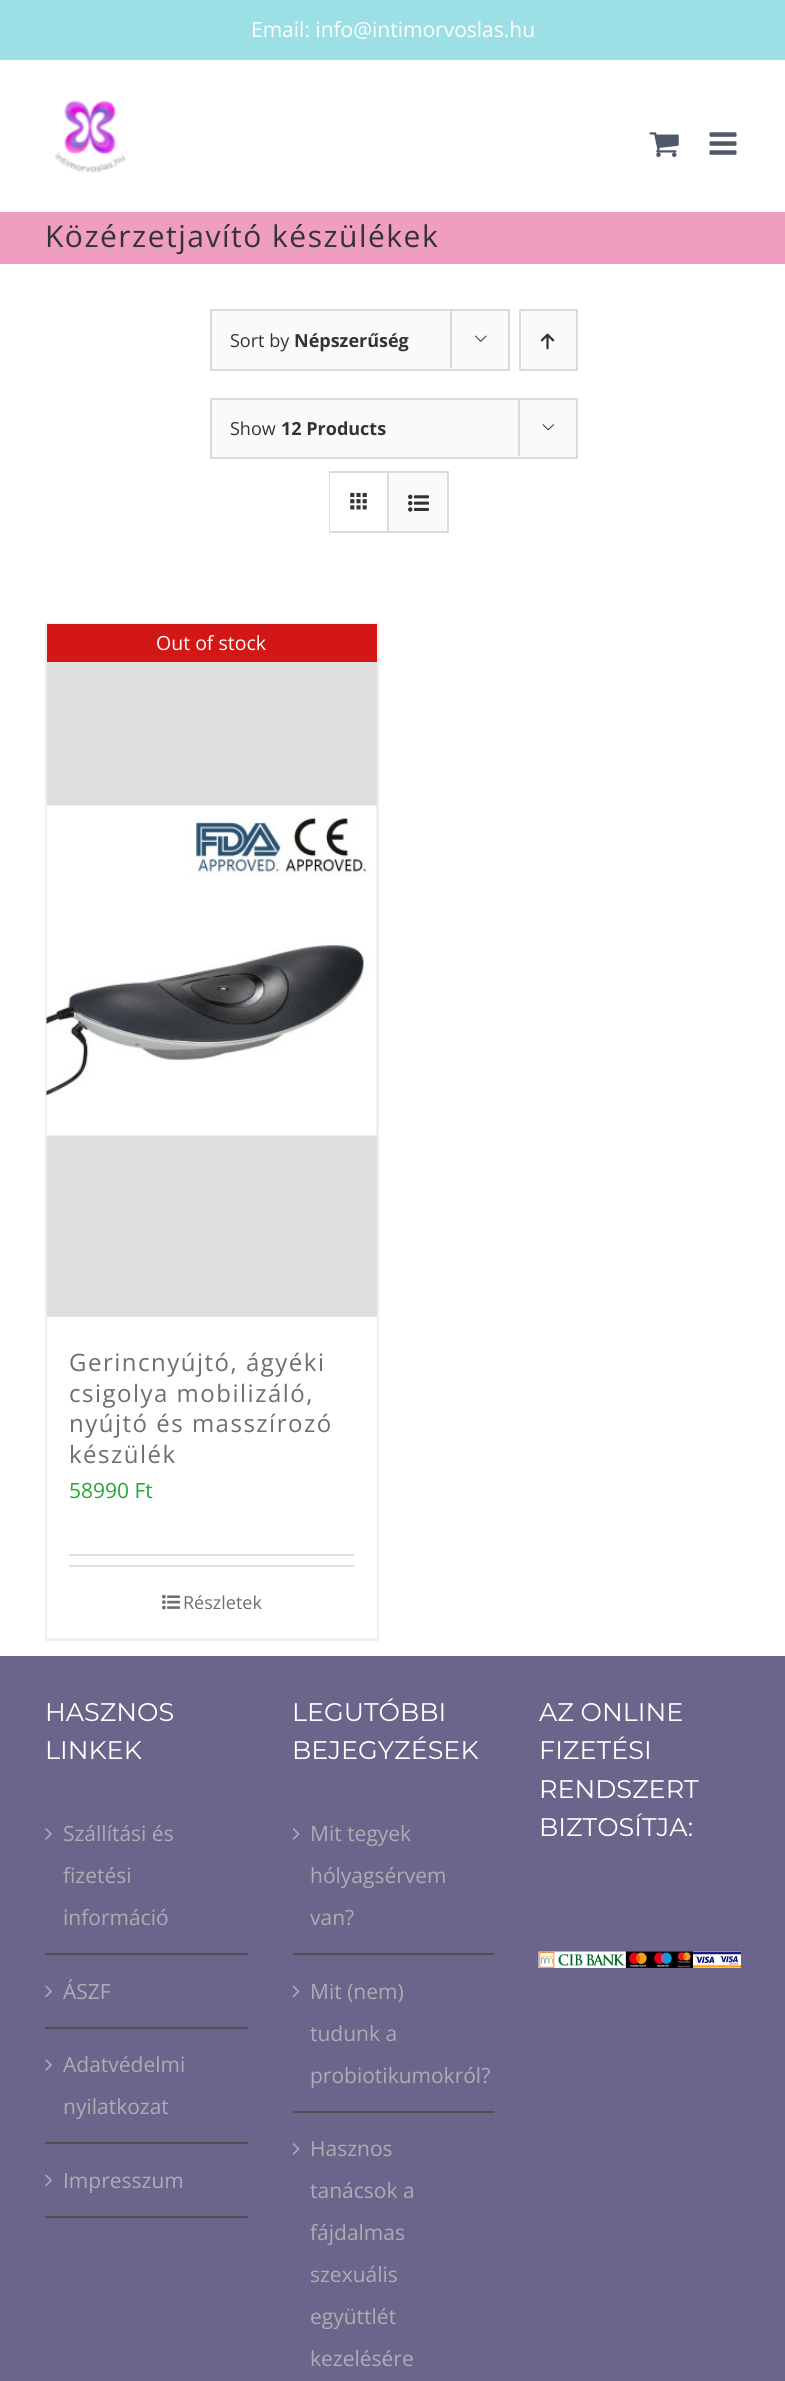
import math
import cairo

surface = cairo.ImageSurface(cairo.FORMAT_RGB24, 785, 2381)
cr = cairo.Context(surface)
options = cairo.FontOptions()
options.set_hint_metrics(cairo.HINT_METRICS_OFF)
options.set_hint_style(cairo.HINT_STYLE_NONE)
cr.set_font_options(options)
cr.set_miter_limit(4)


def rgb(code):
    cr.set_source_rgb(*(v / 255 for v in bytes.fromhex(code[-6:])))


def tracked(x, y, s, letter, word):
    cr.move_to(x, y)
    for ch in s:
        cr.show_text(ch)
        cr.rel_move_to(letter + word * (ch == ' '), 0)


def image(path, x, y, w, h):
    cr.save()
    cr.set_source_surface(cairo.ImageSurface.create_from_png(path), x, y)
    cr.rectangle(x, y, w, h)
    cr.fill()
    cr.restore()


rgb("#ef9ebf")
cr.paint()
rgb("#9cdfe5")
cr.rectangle(0, 0, 785, 60)
cr.fill()
rgb("#ffffff")
cr.rectangle(0, 60, 785, 152)
cr.fill()
image("img/1.png", 54, 100, 72, 73)
image("img/2.png", 649, 132, 30, 25)
image("img/3.png", 709, 132, 28, 23)
cr.rectangle(0, 264, 785, 1392)
cr.fill()
rgb("#fbfaf9")
cr.rectangle(211, 310, 298, 60)
cr.fill_preserve()
rgb("#dbdbdb")
cr.stroke()
cr.rectangle(450, 309, 2, 59)
cr.fill()
image("img/4.png", 475, 335, 12, 7)
rgb("#fbfaf9")
cr.rectangle(520, 310, 57, 60)
cr.fill_preserve()
rgb("#dbdbdb")
cr.stroke()
image("img/5.png", 540, 333, 15, 17)
rgb("#fbfaf9")
cr.rectangle(211, 399, 366, 59)
cr.fill_preserve()
rgb("#dbdbdb")
cr.stroke()
cr.rectangle(518, 398, 2, 58)
cr.fill()
image("img/6.png", 542, 424, 12, 7)
cr.rectangle(330, 472, 118, 60)
cr.stroke()
rgb("#ffffff")
cr.rectangle(330, 473, 1, 58)
cr.fill()
rgb("#dbdbdb")
cr.rectangle(387, 473, 2, 58)
cr.fill()
image("img/7.png", 350, 492, 17, 18)
rgb("#fbfaf9")
cr.rectangle(389, 473, 58, 58)
cr.fill()
image("img/8.png", 408, 494, 21, 18)
for x, y, w, h, color in [
    (45, 623, 333, 1, "#efeee8"),
    (377, 623, 2, 1018, "#efeee8"),
    (45, 1638, 333, 3, "#efeee8"),
    (45, 623, 2, 1018, "#efeee8"),
    (47, 624, 330, 38, "#d31616"),
    (47, 662, 330, 655, "#e0dede"),
]:
    rgb(color)
    cr.rectangle(x, y, w, h)
    cr.fill()
image("img/9.png", 46, 805, 331, 331)
cr.rectangle(69, 1554, 285, 2)
cr.fill()
cr.rectangle(69, 1565, 285, 2)
cr.fill()
image("img/10.png", 162, 1594, 18, 16)
rgb("#6c648b")
cr.rectangle(0, 1656, 785, 725)
cr.fill()
rgb("#505152")
cr.rectangle(45, 1953, 203, 2)
cr.fill()
image("img/11.png", 45, 1828, 7, 12)
cr.rectangle(45, 2027, 203, 2)
cr.fill()
image("img/12.png", 45, 1985, 7, 13)
cr.rectangle(45, 2142, 203, 2)
cr.fill()
image("img/11.png", 45, 2059, 7, 12)
cr.rectangle(45, 2216, 203, 2)
cr.fill()
image("img/12.png", 45, 2174, 7, 13)
cr.rectangle(293, 1953, 201, 2)
cr.fill()
image("img/13.png", 292, 1828, 8, 12)
cr.rectangle(293, 2111, 201, 2)
cr.fill()
image("img/14.png", 292, 1985, 8, 13)
image("img/13.png", 292, 2143, 8, 12)
image("img/15.png", 538, 1951, 203, 17)
cr.select_font_face("Open Sans")
cr.set_font_size(21)
rgb("#ffffff")
cr.move_to(251, 37)
cr.show_text("Email: info@intimorvoslas.hu")
cr.set_font_size(30)
rgb("#333333")
tracked(45, 247, "Közérzetjavító készülékek", 1.5, 0)
cr.set_font_size(18)
cr.move_to(230, 347)
cr.show_text("Sort by")
cr.select_font_face("Open Sans", cairo.FONT_SLANT_NORMAL, cairo.FONT_WEIGHT_BOLD)
cr.move_to(294, 347)
cr.show_text("Népszerűség")
cr.select_font_face("Open Sans")
cr.move_to(230, 435)
cr.show_text("Show")
cr.select_font_face("Open Sans", cairo.FONT_SLANT_NORMAL, cairo.FONT_WEIGHT_BOLD)
cr.move_to(281, 435)
cr.show_text("12 Products")
cr.select_font_face("Open Sans")
cr.set_font_size(19.5)
rgb("#ffffff")
cr.move_to(156, 650)
cr.show_text("Out of stock")
cr.set_font_size(24)
rgb("#6d6e71")
for x, y, s in [
    (69, 1371, "Gerincnyújtó, ágyéki"),
    (69, 1402, "csigolya mobilizáló,"),
    (69, 1432, "nyújtó és masszírozó"),
    (69, 1463, "készülék"),
]:
    tracked(x, y, s, 1.5, 0)
cr.set_font_size(21)
rgb("#24a737")
cr.move_to(69, 1498)
cr.show_text("58990 Ft")
cr.set_font_size(18)
rgb("#6d6e71")
cr.move_to(183, 1609)
cr.show_text("Részletek")
cr.select_font_face("Montserrat Thin")
cr.set_font_size(25.5)
rgb("#ffffff")
cr.move_to(45, 1721)
cr.show_text("HASZNOS")
cr.move_to(45, 1759)
cr.show_text("LINKEK")
cr.select_font_face("Open Sans")
cr.set_font_size(21)
rgb("#a6b0b3")
for x, y, s in [
    (63, 1841, "Szállítási és"),
    (63, 1883, "fizetési"),
    (63, 1925, "információ"),
    (63, 1999, "ÁSZF"),
    (63, 2072, "Adatvédelmi"),
    (63, 2114, "nyilatkozat"),
    (63, 2188, "Impresszum"),
]:
    cr.move_to(x, y)
    cr.show_text(s)
cr.select_font_face("Montserrat Thin")
cr.set_font_size(25.5)
rgb("#ffffff")
cr.move_to(292, 1721)
cr.show_text("LEGUTÓBBI")
cr.move_to(292, 1759)
cr.show_text("BEJEGYZÉSEK")
cr.select_font_face("Open Sans")
cr.set_font_size(21)
rgb("#a6b0b3")
for x, y, s in [
    (310, 1841, "Mit tegyek"),
    (310, 1883, "hólyagsérvem"),
    (310, 1925, "van?"),
    (310, 1999, "Mit (nem)"),
    (310, 2041, "tudunk a"),
    (310, 2083, "probiotikumokról?"),
    (310, 2156, "Hasznos"),
    (310, 2198, "tanácsok a"),
    (310, 2240, "fájdalmas"),
    (310, 2282, "szexuális"),
    (310, 2324, "együttlét"),
    (310, 2366, "kezelésére"),
]:
    cr.move_to(x, y)
    cr.show_text(s)
cr.select_font_face("Montserrat Thin")
cr.set_font_size(25.5)
rgb("#ffffff")
for x, y, s in [
    (539, 1721, "AZ ONLINE"),
    (539, 1759, "FIZETÉSI"),
    (539, 1798, "RENDSZERT"),
    (539, 1836, "BIZTOSÍTJA:"),
]:
    cr.move_to(x, y)
    cr.show_text(s)
surface.write_to_png("page.png")
